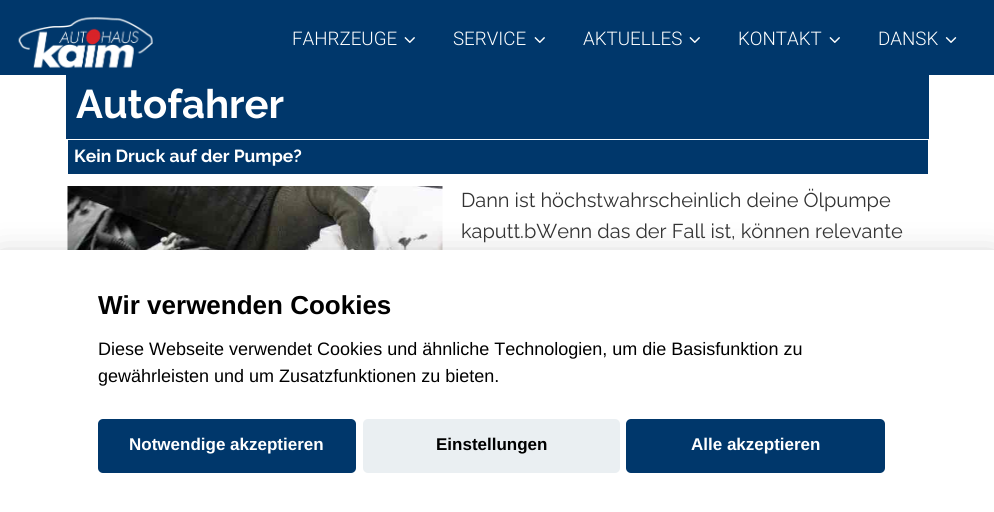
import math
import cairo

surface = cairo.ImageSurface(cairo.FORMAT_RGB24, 994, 512)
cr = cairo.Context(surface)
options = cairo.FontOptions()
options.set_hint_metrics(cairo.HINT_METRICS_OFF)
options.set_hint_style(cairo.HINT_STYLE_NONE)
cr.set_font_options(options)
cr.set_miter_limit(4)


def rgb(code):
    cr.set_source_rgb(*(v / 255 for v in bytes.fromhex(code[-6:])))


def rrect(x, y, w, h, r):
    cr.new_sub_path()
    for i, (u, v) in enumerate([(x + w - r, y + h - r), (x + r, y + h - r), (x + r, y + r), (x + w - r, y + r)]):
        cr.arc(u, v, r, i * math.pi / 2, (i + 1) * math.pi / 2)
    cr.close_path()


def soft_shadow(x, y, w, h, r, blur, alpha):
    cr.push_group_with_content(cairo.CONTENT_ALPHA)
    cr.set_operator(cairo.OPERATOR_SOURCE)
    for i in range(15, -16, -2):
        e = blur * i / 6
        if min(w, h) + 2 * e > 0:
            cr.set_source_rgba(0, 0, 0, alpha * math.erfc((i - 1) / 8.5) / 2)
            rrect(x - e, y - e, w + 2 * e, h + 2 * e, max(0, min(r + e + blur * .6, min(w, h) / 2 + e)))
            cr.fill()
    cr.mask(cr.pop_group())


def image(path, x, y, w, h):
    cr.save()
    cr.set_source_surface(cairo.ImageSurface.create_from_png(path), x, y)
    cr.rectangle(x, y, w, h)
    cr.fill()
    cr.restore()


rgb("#ffffff")
cr.paint()
rgb("#00376b")
cr.rectangle(0, 0, 994, 75)
cr.fill()
image("img/1.png", 18, 17, 135, 51)
image("img/2.png", 404, 37, 11, 6)
image("img/2.png", 534, 37, 11, 6)
image("img/2.png", 689, 37, 11, 6)
image("img/2.png", 829, 37, 11, 6)
image("img/3.png", 945, 37, 12, 6)
cr.rectangle(66, 75, 863, 64)
cr.fill()
cr.rectangle(68, 140, 860, 34)
cr.fill()
image("img/4.png", 67, 186, 376, 64)
rgb("#020203")
soft_shadow(0, 263, 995, 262, 0, 19, 0.28)
rgb("#ffffff")
cr.rectangle(0, 250, 994, 262)
cr.fill()
rgb("#00376b")
rrect(98, 419, 258, 54, 5)
cr.fill()
rgb("#eaeff2")
rrect(363, 419, 257, 54, 5)
cr.fill()
rgb("#00376b")
rrect(626, 419, 259, 54, 5)
cr.fill()
cr.select_font_face("Roboto Light")
cr.set_font_size(18.75)
rgb("#ffffff")
for x, y, s in [
    (292, 45, "FAHRZEUGE"),
    (453, 45, "SERVICE"),
    (583, 45, "AKTUELLES"),
    (738, 45, "KONTAKT"),
    (878, 45, "DANSK"),
]:
    cr.move_to(x, y)
    cr.show_text(s)
cr.select_font_face("Raleway", cairo.FONT_SLANT_NORMAL, cairo.FONT_WEIGHT_BOLD)
cr.set_font_size(40)
cr.move_to(76, 118)
cr.show_text("Autofahrer")
cr.set_font_size(17.5)
cr.move_to(74, 162)
cr.show_text("Kein Druck auf der Pumpe?")
cr.select_font_face("Raleway")
cr.set_font_size(20)
rgb("#333333")
cr.move_to(461, 207)
cr.show_text("Dann ist höchstwahrscheinlich deine Ölpumpe")
cr.move_to(461, 238)
cr.show_text("kaputt.bWenn das der Fall ist, können relevante")
cr.select_font_face("Liberation Sans", cairo.FONT_SLANT_NORMAL, cairo.FONT_WEIGHT_BOLD)
cr.set_font_size(26)
rgb("#000000")
cr.move_to(98, 314)
cr.show_text("Wir verwenden Cookies")
cr.select_font_face("Liberation Sans")
cr.set_font_size(18)
cr.move_to(98, 355)
cr.show_text("Diese Webseite verwendet Cookies und ähnliche Technologien, um die Basisfunktion zu")
cr.move_to(98, 382)
cr.show_text("gewährleisten und um Zusatzfunktionen zu bieten.")
cr.select_font_face("Liberation Sans", cairo.FONT_SLANT_NORMAL, cairo.FONT_WEIGHT_BOLD)
cr.set_font_size(17)
rgb("#ffffff")
cr.move_to(129, 450)
cr.show_text("Notwendige akzeptieren")
rgb("#000000")
cr.move_to(436, 450)
cr.show_text("Einstellungen")
rgb("#ffffff")
cr.move_to(691, 450)
cr.show_text("Alle akzeptieren")
surface.write_to_png("page.png")
